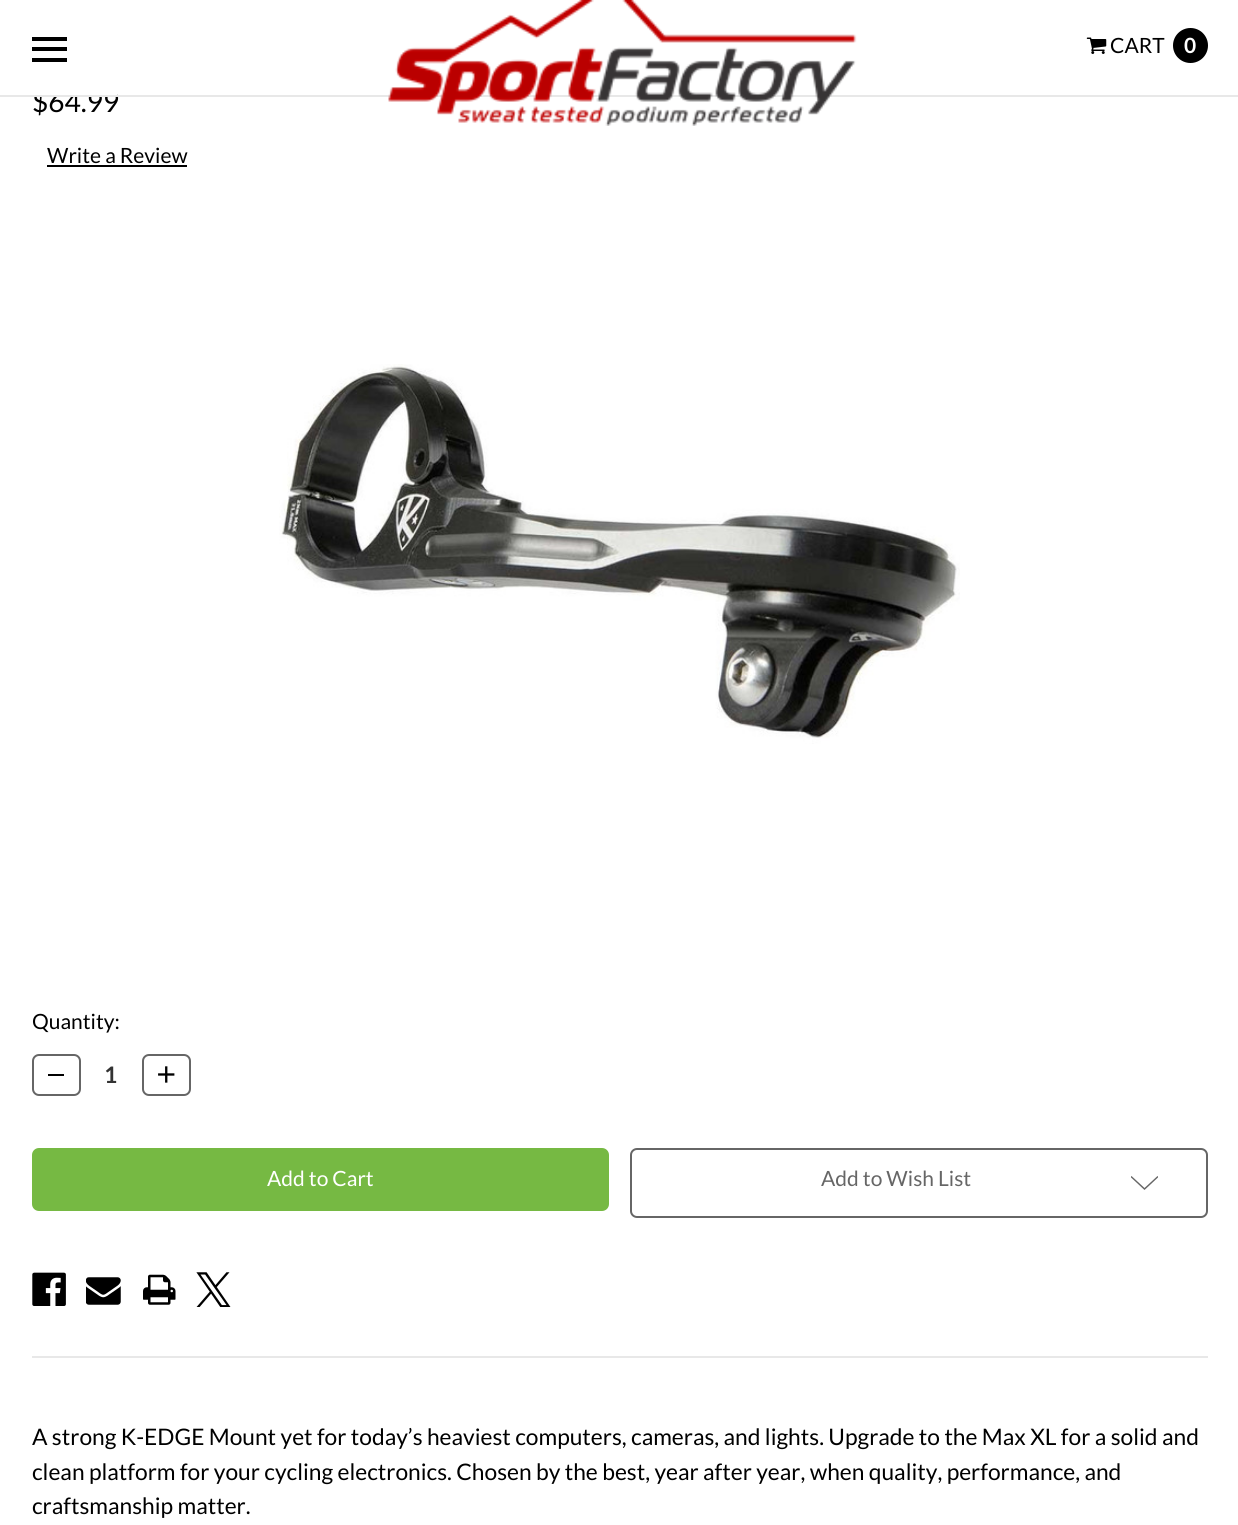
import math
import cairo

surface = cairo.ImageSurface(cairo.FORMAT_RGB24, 1238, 1525)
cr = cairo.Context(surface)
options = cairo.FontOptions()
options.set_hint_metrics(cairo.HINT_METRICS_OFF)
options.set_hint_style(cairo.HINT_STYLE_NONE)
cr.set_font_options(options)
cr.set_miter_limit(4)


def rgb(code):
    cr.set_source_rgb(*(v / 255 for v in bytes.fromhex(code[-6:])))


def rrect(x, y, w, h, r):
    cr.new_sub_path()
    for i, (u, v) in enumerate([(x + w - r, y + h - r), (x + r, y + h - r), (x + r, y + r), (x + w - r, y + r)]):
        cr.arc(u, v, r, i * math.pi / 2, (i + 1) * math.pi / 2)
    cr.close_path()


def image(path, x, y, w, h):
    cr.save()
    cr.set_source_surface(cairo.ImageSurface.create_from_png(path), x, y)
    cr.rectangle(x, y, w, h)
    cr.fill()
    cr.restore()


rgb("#ffffff")
cr.paint()
for x, y, w, h, color in [
    (32, 47, 35, 4, "#000000"),
    (32, 37, 35, 4, "#000000"),
    (32, 58, 35, 4, "#000000"),
]:
    rgb(color)
    cr.rectangle(x, y, w, h)
    cr.fill()
image("img/2.png", 1086, 37, 21, 17)
cr.arc(1190.5, 45.5, 17.5, 0, 2 * math.pi)
cr.fill()
cr.rectangle(47, 165, 140, 2)
cr.fill()
image("img/3.png", 279, 364, 681, 380)
rrect(33, 1055, 47, 40, 6)
rgb("#666666")
cr.stroke()
rgb("#000000")
cr.rectangle(48, 1074, 16, 2)
cr.fill()
rrect(143, 1055, 47, 40, 6)
rgb("#666666")
cr.stroke()
image("img/4.png", 158, 1066, 17, 17)
rgb("#76b943")
rrect(33, 1149, 575, 61, 6)
cr.fill_preserve()
cr.stroke()
rrect(631, 1149, 576, 68, 6)
rgb("#666666")
cr.stroke()
cr.save()
cr.rectangle(1131, 1169, 27, 28)
cr.clip()
cr.set_fill_rule(cairo.FILL_RULE_EVEN_ODD)
cr.new_path()
cr.move_to(1144.5, 1188)
cr.line_to(1157.5, 1176)
cr.line_to(1158.5, 1177)
cr.line_to(1144.5, 1190)
cr.line_to(1130.5, 1177)
cr.line_to(1131.5, 1176)
cr.close_path()
cr.fill()
cr.restore()
image("img/5.png", 32, 1272, 34, 34)
image("img/6.png", 86, 1277, 35, 28)
image("img/7.png", 143, 1274, 33, 31)
image("img/8.png", 196, 1272, 35, 35)
rgb("#e8e8e8")
cr.rectangle(32, 1356, 1176, 2)
cr.fill()
cr.select_font_face("Lato")
cr.set_font_size(21)
rgb("#000000")
cr.move_to(1110, 53)
cr.show_text("CART")
cr.select_font_face("Lato", cairo.FONT_SLANT_NORMAL, cairo.FONT_WEIGHT_BOLD)
rgb("#ffffff")
cr.move_to(1184, 53)
cr.show_text("0")
cr.select_font_face("Lato")
cr.set_font_size(28)
rgb("#000000")
cr.move_to(32, 112)
cr.show_text("$64.99")
rgb("#e8e8e8")
cr.rectangle(0, 95, 1238, 2)
cr.fill()
image("img/1.png", 388, 0, 469, 126)
rgb("#ffffff")
cr.rectangle(34, 89, 83, 6)
cr.fill()
cr.set_font_size(21)
rgb("#000000")
cr.move_to(47, 163)
cr.show_text("Write a Review")
cr.move_to(32, 1029)
cr.show_text("Quantity:")
cr.select_font_face("Lato", cairo.FONT_SLANT_NORMAL, cairo.FONT_WEIGHT_BOLD)
cr.set_font_size(22.75)
rgb("#333333")
cr.move_to(104, 1083)
cr.show_text("1")
cr.select_font_face("Lato")
cr.set_font_size(21)
rgb("#ffffff")
cr.move_to(267, 1186)
cr.show_text("Add to Cart")
rgb("#666666")
cr.move_to(821, 1186)
cr.show_text("Add to Wish List")
cr.set_font_size(22.75)
rgb("#000000")
for x, y, s in [
    (32, 1445, "A strong K-EDGE Mount yet for today’s heaviest computers, cameras, and lights. Upgrade to the Max XL for a solid and"),
    (32, 1480, "clean platform for your cycling electronics. Chosen by the best, year after year, when quality, performance, and"),
    (32, 1514, "craftsmanship matter."),
]:
    cr.move_to(x, y)
    cr.show_text(s)
surface.write_to_png("page.png")
